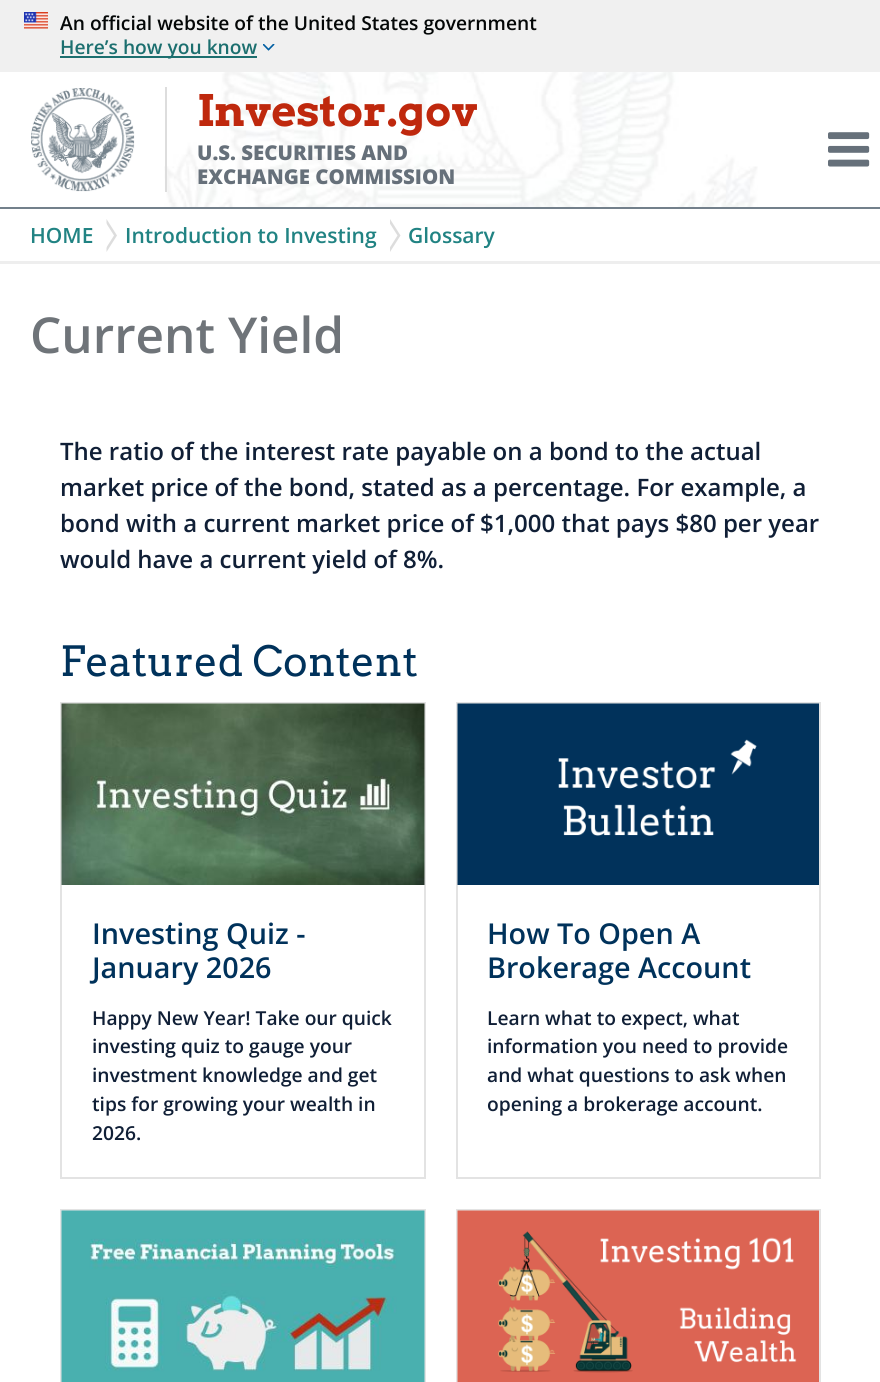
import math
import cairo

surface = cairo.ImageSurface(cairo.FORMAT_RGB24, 880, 1382)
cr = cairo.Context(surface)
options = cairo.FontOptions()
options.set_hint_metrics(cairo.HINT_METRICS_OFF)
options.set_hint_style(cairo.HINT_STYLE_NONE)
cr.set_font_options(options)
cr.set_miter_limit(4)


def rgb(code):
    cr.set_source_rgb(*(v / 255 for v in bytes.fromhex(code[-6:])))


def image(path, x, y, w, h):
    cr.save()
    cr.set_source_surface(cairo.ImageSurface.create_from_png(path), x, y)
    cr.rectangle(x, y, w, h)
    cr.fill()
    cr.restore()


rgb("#ffffff")
cr.paint()
rgb("#f0f0f0")
cr.rectangle(0, 0, 880, 72)
cr.fill()
image("img/1.png", 24, 12, 24, 17)
rgb("#1c6f6f")
cr.rectangle(60, 56, 197, 2)
cr.fill()
image("img/2.png", 263, 44, 12, 7)
rgb("#73808b")
cr.rectangle(0, 207, 880, 2)
cr.fill()
image("img/3.png", 164, 72, 594, 135)
image("img/4.png", 31, 88, 104, 104)
rgb("#dddddd")
cr.rectangle(165, 87, 2, 105)
cr.fill()
image("img/5.png", 828, 132, 42, 35)
rgb("#eeeeee")
cr.rectangle(0, 261, 880, 3)
cr.fill()
rgb("#dddddd")
cr.new_path()
cr.move_to(106.5, 252)
cr.line_to(106.5, 219)
cr.line_to(117, 235.5)
cr.close_path()
cr.fill()
rgb("#ffffff")
cr.new_path()
cr.move_to(103.5, 252)
cr.line_to(103.5, 219)
cr.line_to(114, 235.5)
cr.close_path()
cr.fill()
rgb("#dddddd")
cr.new_path()
cr.move_to(390, 252)
cr.line_to(390, 219)
cr.line_to(400.5, 235.5)
cr.close_path()
cr.fill()
rgb("#ffffff")
cr.new_path()
cr.move_to(387, 252)
cr.line_to(387, 219)
cr.line_to(397.5, 235.5)
cr.close_path()
cr.fill()
cr.rectangle(61, 703, 364, 475)
rgb("#e3e3e3")
cr.stroke()
image("img/6.png", 61, 703, 364, 182)
cr.rectangle(457, 703, 363, 475)
cr.stroke()
image("img/7.png", 457, 703, 362, 182)
cr.rectangle(61, 1210, 364, 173)
cr.stroke()
image("img/8.png", 61, 1210, 364, 172)
cr.rectangle(457, 1210, 363, 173)
cr.stroke()
image("img/9.png", 457, 1210, 362, 172)
cr.select_font_face("Open Sans SemiBold")
cr.set_font_size(19.2)
rgb("#040707")
cr.move_to(60, 30)
cr.show_text("An official website of the United States government")
rgb("#1c6f6f")
cr.move_to(60, 54)
cr.show_text("Here’s how you know")
cr.select_font_face("Arvo", cairo.FONT_SLANT_NORMAL, cairo.FONT_WEIGHT_BOLD)
cr.set_font_size(43.25)
rgb("#bf280d")
cr.move_to(197, 126)
cr.show_text("Investor.gov")
cr.select_font_face("Open Sans ExtraBold")
cr.set_font_size(20.4)
rgb("#66707a")
cr.move_to(197, 160)
cr.show_text("U.S. SECURITIES AND")
cr.move_to(197, 184)
cr.show_text("EXCHANGE COMMISSION")
cr.select_font_face("Open Sans SemiBold")
cr.set_font_size(21)
rgb("#218383")
for x, y, s in [
    (30, 243, "HOME"),
    (125, 243, "Introduction to Investing"),
    (408, 243, "Glossary"),
]:
    cr.move_to(x, y)
    cr.show_text(s)
cr.set_font_size(49.5)
rgb("#6f7479")
cr.move_to(30, 353)
cr.show_text("Current Yield")
cr.set_font_size(24)
rgb("#101f36")
for x, y, s in [
    (60, 460, "The ratio of the interest rate payable on a bond to the actual"),
    (60, 496, "market price of the bond, stated as a percentage. For example, a"),
    (60, 532, "bond with a current market price of $1,000 that pays $80 per year"),
    (60, 568, "would have a current yield of 8%."),
]:
    cr.move_to(x, y)
    cr.show_text(s)
cr.select_font_face("Arvo")
cr.set_font_size(41.5)
rgb("#00325b")
cr.move_to(60, 676)
cr.show_text("Featured Content")
cr.select_font_face("Open Sans SemiBold")
cr.set_font_size(28.75)
cr.move_to(92, 944)
cr.show_text("Investing Quiz -")
cr.move_to(92, 978)
cr.show_text("January 2026")
cr.set_font_size(19.2)
rgb("#101f36")
for x, y, s in [
    (92, 1025, "Happy New Year! Take our quick"),
    (92, 1053, "investing quiz to gauge your"),
    (92, 1082, "investment knowledge and get"),
    (92, 1111, "tips for growing your wealth in"),
    (92, 1140, "2026."),
]:
    cr.move_to(x, y)
    cr.show_text(s)
cr.set_font_size(28.75)
rgb("#00325b")
cr.move_to(487, 944)
cr.show_text("How To Open A")
cr.move_to(487, 978)
cr.show_text("Brokerage Account")
cr.set_font_size(19.2)
rgb("#101f36")
for x, y, s in [
    (487, 1025, "Learn what to expect, what"),
    (487, 1053, "information you need to provide"),
    (487, 1082, "and what questions to ask when"),
    (487, 1111, "opening a brokerage account."),
]:
    cr.move_to(x, y)
    cr.show_text(s)
surface.write_to_png("page.png")
